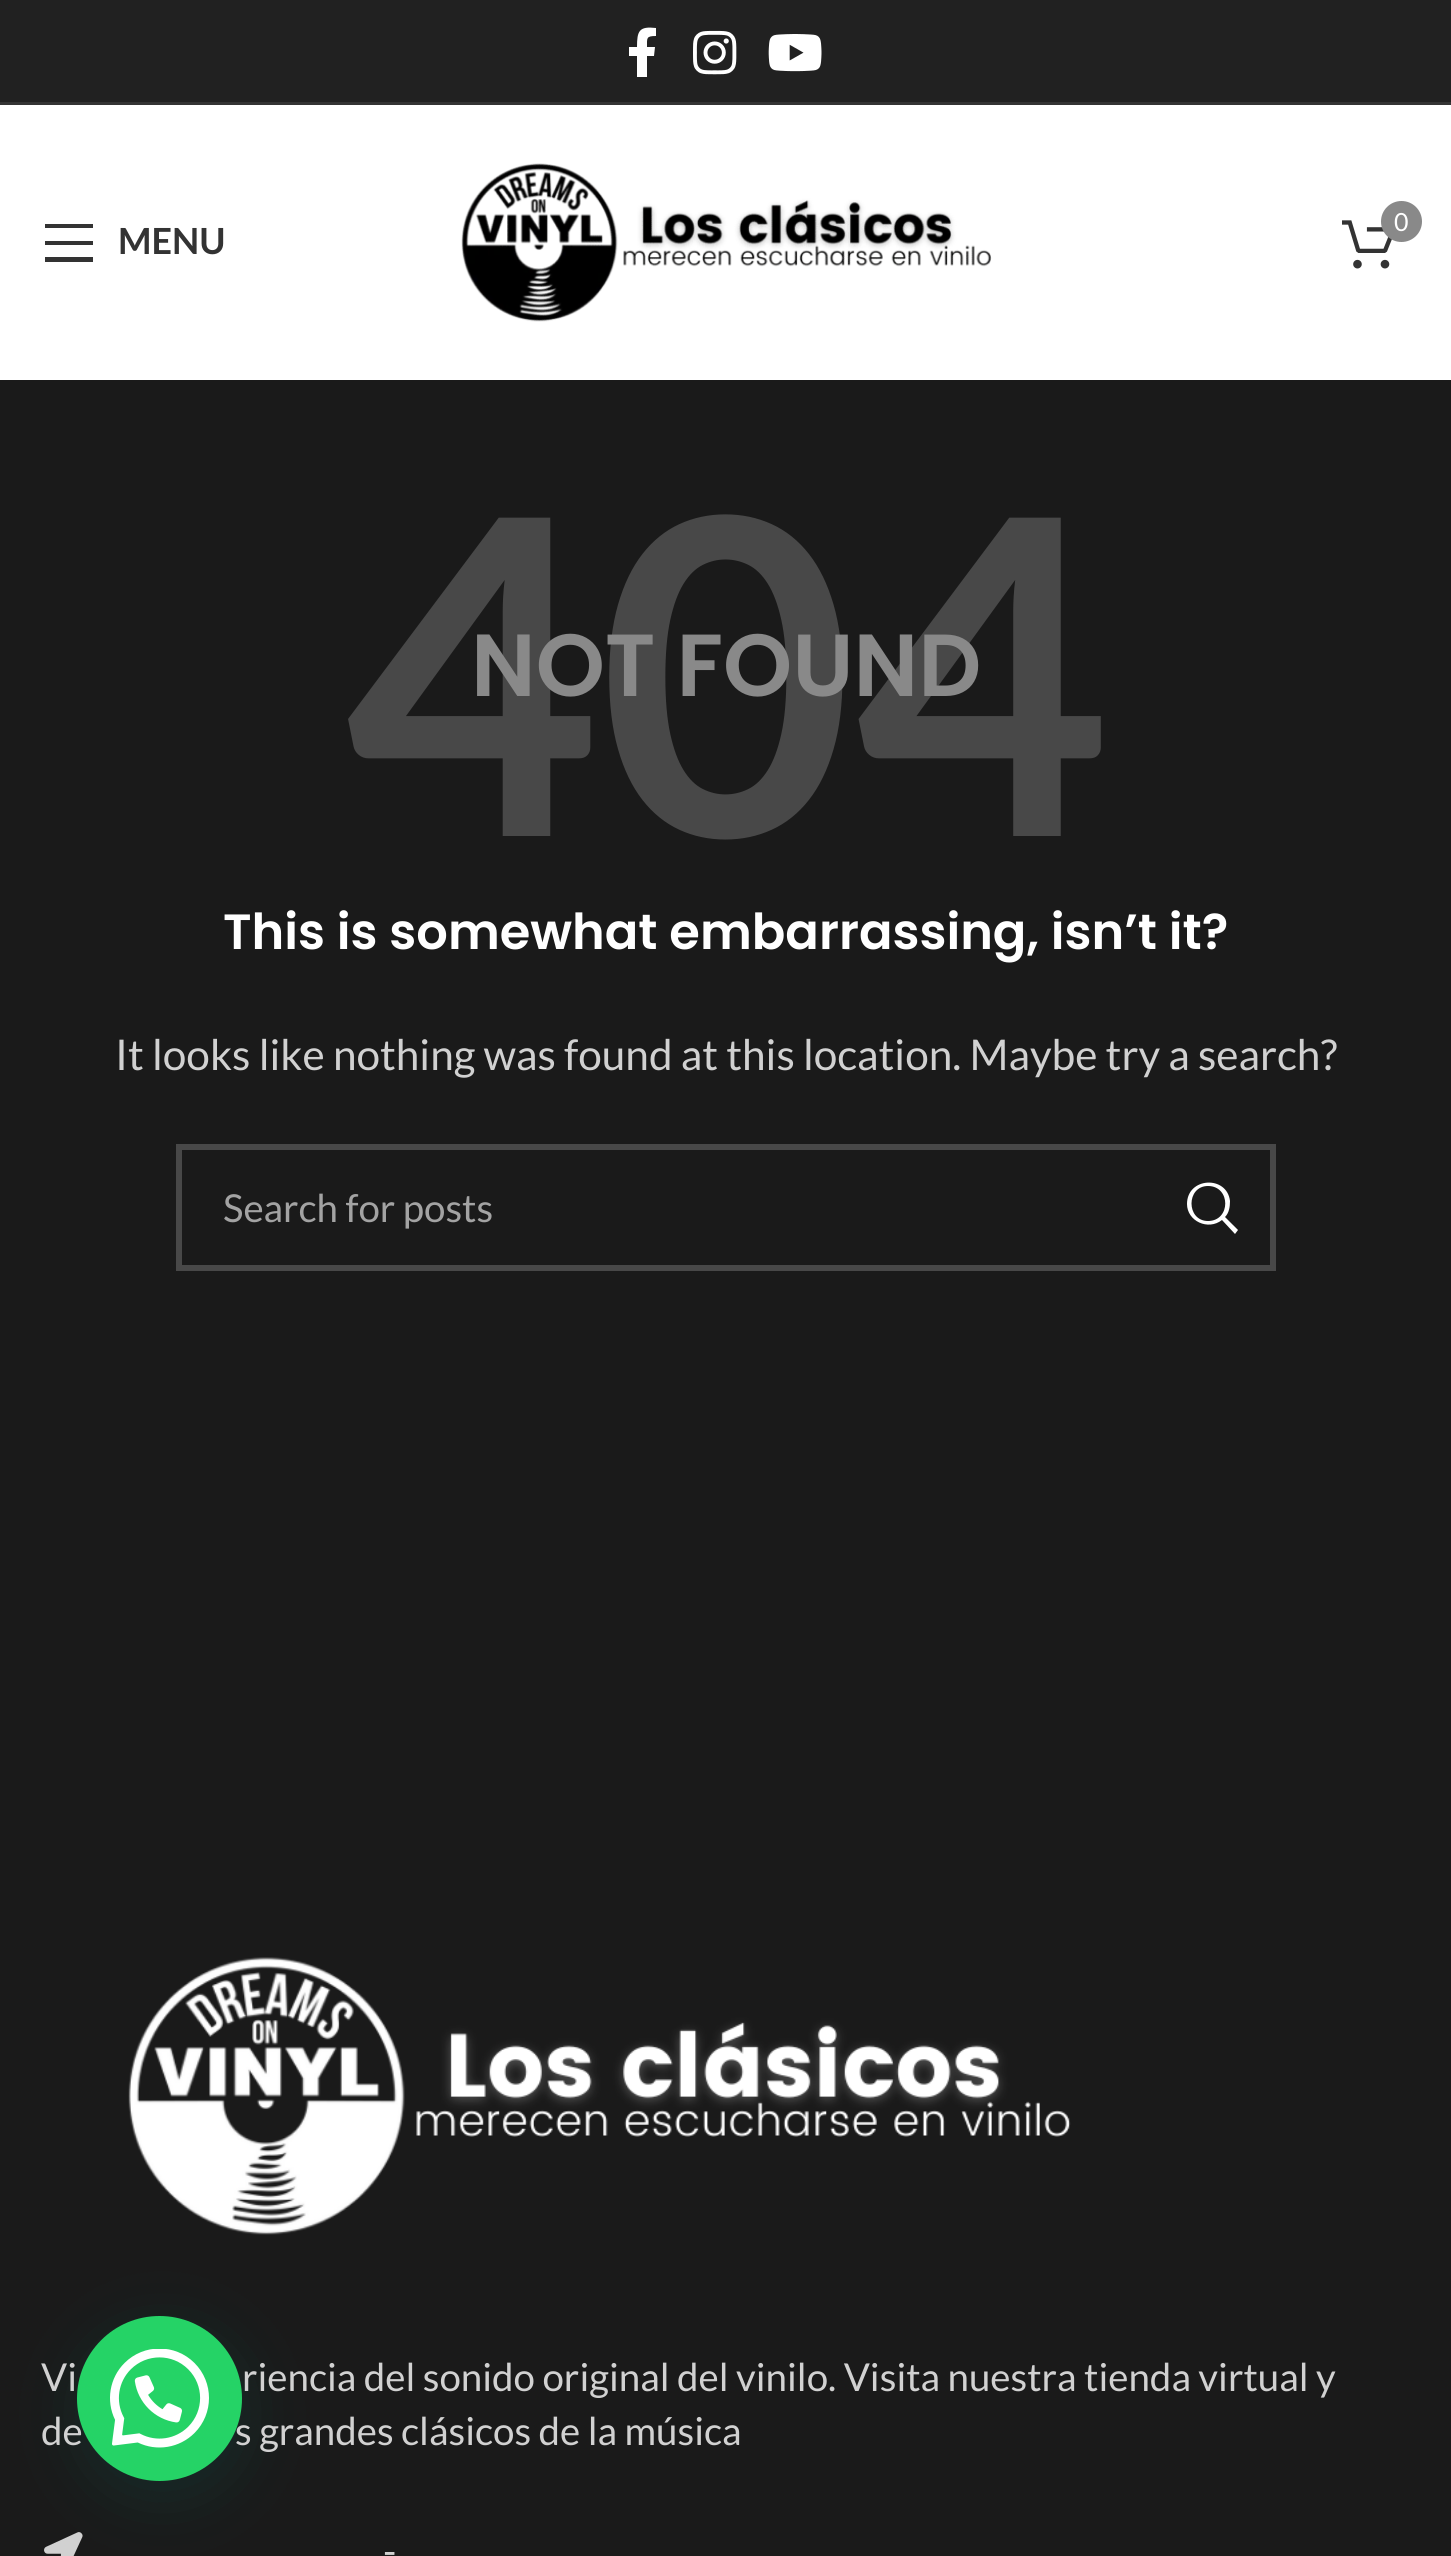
import math
import cairo

surface = cairo.ImageSurface(cairo.FORMAT_RGB24, 1451, 2556)
cr = cairo.Context(surface)
options = cairo.FontOptions()
options.set_hint_metrics(cairo.HINT_METRICS_OFF)
options.set_hint_style(cairo.HINT_STYLE_NONE)
cr.set_font_options(options)
cr.set_miter_limit(4)


def rgb(code):
    cr.set_source_rgb(*(v / 255 for v in bytes.fromhex(code[-6:])))


def rrect(x, y, w, h, r):
    cr.new_sub_path()
    for i, (u, v) in enumerate([(x + w - r, y + h - r), (x + r, y + h - r), (x + r, y + r), (x + w - r, y + r)]):
        cr.arc(u, v, r, i * math.pi / 2, (i + 1) * math.pi / 2)
    cr.close_path()


def soft_shadow(x, y, w, h, r, blur, alpha):
    cr.push_group_with_content(cairo.CONTENT_ALPHA)
    cr.set_operator(cairo.OPERATOR_SOURCE)
    for i in range(15, -16, -2):
        e = blur * i / 6
        if min(w, h) + 2 * e > 0:
            cr.set_source_rgba(0, 0, 0, alpha * math.erfc((i - 1) / 8.5) / 2)
            rrect(x - e, y - e, w + 2 * e, h + 2 * e, max(0, min(r + e + blur * .6, min(w, h) / 2 + e)))
            cr.fill()
    cr.mask(cr.pop_group())


def image(path, x, y, w, h):
    cr.save()
    cr.set_source_surface(cairo.ImageSurface.create_from_png(path), x, y)
    cr.rectangle(x, y, w, h)
    cr.fill()
    cr.restore()


rgb("#1a1a1a")
cr.paint()
rgb("#212121")
cr.rectangle(0, 0, 1451, 102)
cr.fill()
rgb("#343434")
cr.rectangle(0, 102, 1451, 3)
cr.fill()
rgb("#ffffff")
cr.new_path()
cr.move_to(654, 56)
cr.line_to(655, 47)
cr.line_to(647, 47)
cr.curve_to(647, 38, 646, 36, 656, 36)
cr.line_to(656, 28)
cr.curve_to(639, 26, 637, 31, 637, 47)
cr.line_to(629, 47)
cr.line_to(629, 56)
cr.line_to(637, 56)
cr.line_to(637, 77)
cr.line_to(647, 77)
cr.line_to(647, 56)
cr.close_path()
cr.fill()
image("img/1.png", 693, 30, 44, 45)
image("img/2.png", 768, 34, 54, 38)
cr.rectangle(0, 105, 1451, 275)
cr.fill()
image("img/3.png", 461, 163, 531, 159)
image("img/4.png", 1342, 220, 50, 49)
rgb("#898989")
cr.arc(1401.5, 221.5, 20.5, 0, 2 * math.pi)
cr.fill()
rgb("#333333")
cr.new_path()
cr.move_to(45, 228)
cr.line_to(93, 228)
cr.line_to(93, 224)
cr.line_to(45, 224)
cr.close_path()
cr.move_to(45, 245)
cr.line_to(93, 245)
cr.line_to(93, 241)
cr.line_to(45, 241)
cr.close_path()
cr.move_to(45, 262)
cr.line_to(93, 262)
cr.line_to(93, 257)
cr.line_to(45, 257)
cr.close_path()
cr.fill()
cr.rectangle(179, 1147, 1094, 121)
rgb("#484848")
cr.set_line_width(6)
cr.stroke()
rgb("#ffffff")
cr.new_path()
cr.move_to(1187, 1204)
cr.curve_to(1187, 1221, 1208, 1231, 1222, 1220)
cr.line_to(1235, 1234)
cr.line_to(1238, 1230)
cr.line_to(1225, 1217)
cr.curve_to(1229, 1213, 1230, 1207, 1230, 1201)
cr.curve_to(1227, 1175, 1187, 1177, 1187, 1204)
cr.close_path()
cr.move_to(1208, 1221)
cr.curve_to(1186, 1221, 1186, 1186, 1208, 1186)
cr.curve_to(1231, 1186, 1231, 1221, 1208, 1221)
cr.close_path()
cr.fill()
image("img/5.png", 128, 1957, 943, 278)
image("img/6.png", 44, 2532, 39, 24)
rgb("#075e54")
soft_shadow(80, 2332, 165, 165, 82.5, 33, 0.24)
cr.select_font_face("Lato")
cr.set_font_size(25)
rgb("#ffffff")
cr.move_to(1394, 231)
cr.show_text("0")
cr.select_font_face("Lato", cairo.FONT_SLANT_NORMAL, cairo.FONT_WEIGHT_BOLD)
cr.set_font_size(36)
rgb("#333333")
cr.move_to(118, 254)
cr.show_text("MENU")
cr.set_font_size(440)
rgb("#484848")
cr.move_to(343, 836)
cr.show_text("404")
cr.select_font_face("Poppins SemiBold")
cr.set_font_size(88)
rgb("#898989")
cr.move_to(471, 696)
cr.show_text("NOT FOUND")
cr.set_font_size(49.5)
rgb("#ffffff")
cr.move_to(223, 949)
cr.show_text("This is somewhat embarrassing, isn’t it?")
cr.select_font_face("Lato")
cr.set_font_size(42.35)
rgb("#d1d1d1")
cr.move_to(115, 1070)
cr.show_text("It looks like nothing was found at this location. Maybe try a search?")
cr.set_font_size(38.5)
rgb("#a3a3a3")
cr.move_to(223, 1222)
cr.show_text("Search for posts")
rgb("#d1d1d1")
for x, y, s in [
    (41, 2391, "Vi"),
    (242, 2391, "riencia del sonido original del vinilo. Visita nuestra tienda virtual y"),
    (41, 2445, "de"),
    (235, 2445, "s grandes clásicos de la música"),
    (383, 2565, "-"),
]:
    cr.move_to(x, y)
    cr.show_text(s)
rgb("#25d366")
cr.new_path()
cr.arc(159.5, 2398.5, 82.5, 0, 2 * math.pi)
cr.fill()
image("img/7.png", 110, 2349, 99, 99)
surface.write_to_png("page.png")
